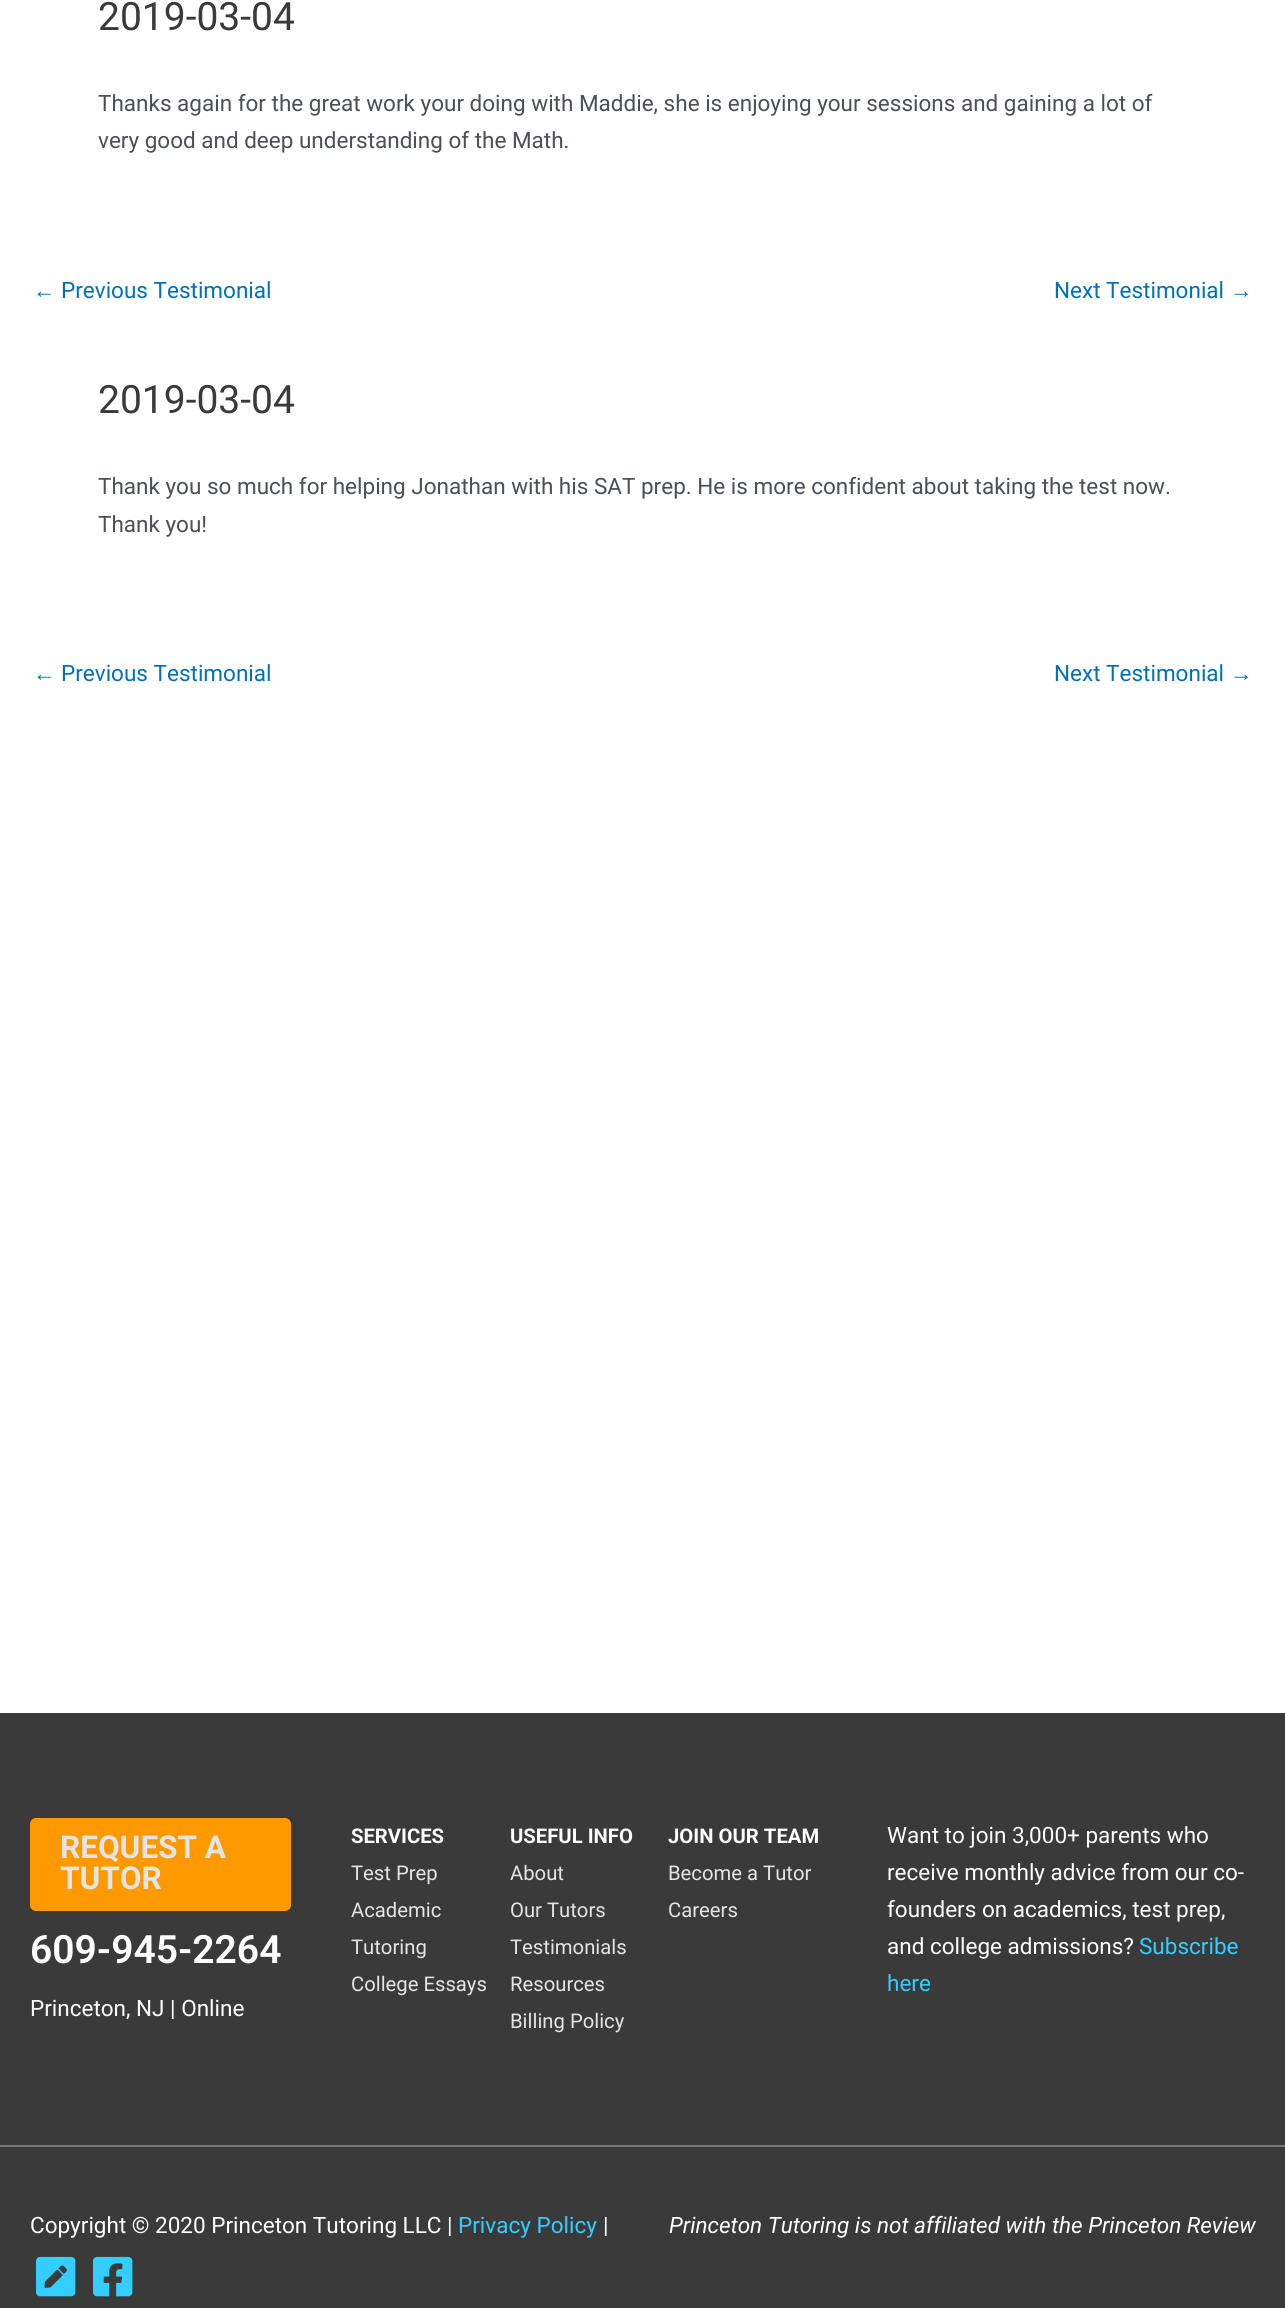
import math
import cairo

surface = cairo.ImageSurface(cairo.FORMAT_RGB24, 1285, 2308)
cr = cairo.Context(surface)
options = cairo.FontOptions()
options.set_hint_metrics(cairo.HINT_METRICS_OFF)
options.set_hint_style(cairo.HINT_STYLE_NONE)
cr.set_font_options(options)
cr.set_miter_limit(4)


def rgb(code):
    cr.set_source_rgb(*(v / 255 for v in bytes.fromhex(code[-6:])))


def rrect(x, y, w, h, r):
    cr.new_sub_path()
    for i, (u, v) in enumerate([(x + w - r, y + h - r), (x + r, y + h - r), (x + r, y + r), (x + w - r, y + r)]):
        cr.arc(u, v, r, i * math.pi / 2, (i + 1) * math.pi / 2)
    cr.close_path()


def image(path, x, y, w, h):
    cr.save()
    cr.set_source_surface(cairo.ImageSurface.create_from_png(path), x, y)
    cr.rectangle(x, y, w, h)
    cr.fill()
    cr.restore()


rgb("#ffffff")
cr.paint()
rgb("#3a3a3a")
cr.rectangle(0, 1713, 1285, 432)
cr.fill()
rgb("#ff9900")
rrect(30, 1818, 261, 93, 6)
cr.fill()
rgb("#7a7a7a")
cr.rectangle(0, 2145, 1285, 2)
cr.fill()
rgb("#3a3a3a")
cr.rectangle(0, 2147, 1285, 161)
cr.fill()
image("img/1.png", 36, 2256, 40, 41)
image("img/2.png", 93, 2256, 40, 41)
cr.select_font_face("Roboto")
cr.set_font_size(39)
cr.move_to(98, 30)
cr.show_text("2019-03-04")
cr.set_font_size(22.5)
rgb("#4b4f58")
cr.move_to(98, 111)
cr.show_text("Thanks again for the great work your doing with Maddie, she is enjoying your sessions and gaining a lot of")
cr.move_to(98, 148)
cr.show_text("very good and deep understanding of the Math.")
cr.select_font_face("Liberation Sans")
rgb("#0170b9")
cr.move_to(33, 298)
cr.show_text("←")
cr.select_font_face("Roboto")
cr.move_to(61, 298)
cr.show_text("Previous Testimonial")
cr.move_to(1054, 298)
cr.show_text("Next Testimonial")
cr.select_font_face("Liberation Sans")
cr.move_to(1230, 298)
cr.show_text("→")
cr.select_font_face("Roboto")
cr.set_font_size(39)
rgb("#3a3a3a")
cr.move_to(98, 413)
cr.show_text("2019-03-04")
cr.set_font_size(22.5)
rgb("#4b4f58")
cr.move_to(98, 494)
cr.show_text("Thank you so much for helping Jonathan with his SAT prep. He is more confident about taking the test now.")
cr.move_to(98, 532)
cr.show_text("Thank you!")
cr.select_font_face("Liberation Sans")
rgb("#0170b9")
cr.move_to(33, 681)
cr.show_text("←")
cr.select_font_face("Roboto")
cr.move_to(61, 681)
cr.show_text("Previous Testimonial")
cr.move_to(1054, 681)
cr.show_text("Next Testimonial")
cr.select_font_face("Liberation Sans")
cr.move_to(1230, 681)
cr.show_text("→")
cr.select_font_face("Roboto", cairo.FONT_SLANT_NORMAL, cairo.FONT_WEIGHT_BOLD)
cr.set_font_size(31.5)
rgb("#e5e5e5")
cr.move_to(60, 1858)
cr.show_text("REQUEST A")
cr.move_to(60, 1889)
cr.show_text("TUTOR")
cr.select_font_face("Roboto SemiBold")
cr.set_font_size(39)
rgb("#ffffff")
cr.move_to(30, 1963)
cr.show_text("609-945-2264")
cr.select_font_face("Roboto")
cr.set_font_size(22.5)
cr.move_to(30, 2016)
cr.show_text("Princeton, NJ | Online")
cr.select_font_face("Roboto", cairo.FONT_SLANT_NORMAL, cairo.FONT_WEIGHT_BOLD)
cr.set_font_size(20.25)
cr.move_to(351, 1843)
cr.show_text("SERVICES")
cr.select_font_face("Roboto")
rgb("#e5e5e5")
for x, y, s in [
    (351, 1880, "Test Prep"),
    (351, 1917, "Academic"),
    (351, 1954, "Tutoring"),
    (351, 1991, "College Essays"),
]:
    cr.move_to(x, y)
    cr.show_text(s)
cr.select_font_face("Roboto", cairo.FONT_SLANT_NORMAL, cairo.FONT_WEIGHT_BOLD)
rgb("#ffffff")
cr.move_to(510, 1843)
cr.show_text("USEFUL INFO")
cr.select_font_face("Roboto")
rgb("#e5e5e5")
for x, y, s in [
    (510, 1880, "About"),
    (510, 1917, "Our Tutors"),
    (510, 1954, "Testimonials"),
    (510, 1991, "Resources"),
    (510, 2028, "Billing Policy"),
]:
    cr.move_to(x, y)
    cr.show_text(s)
cr.select_font_face("Roboto", cairo.FONT_SLANT_NORMAL, cairo.FONT_WEIGHT_BOLD)
rgb("#ffffff")
cr.move_to(668, 1843)
cr.show_text("JOIN OUR TEAM")
cr.select_font_face("Roboto")
rgb("#e5e5e5")
cr.move_to(668, 1880)
cr.show_text("Become a Tutor")
cr.move_to(668, 1917)
cr.show_text("Careers")
cr.set_font_size(22.5)
rgb("#ffffff")
for x, y, s in [
    (887, 1843, "Want to join 3,000+ parents who"),
    (887, 1880, "receive monthly advice from our co-"),
    (887, 1917, "founders on academics, test prep,"),
    (887, 1954, "and college admissions?"),
]:
    cr.move_to(x, y)
    cr.show_text(s)
rgb("#33ceff")
cr.move_to(1139, 1954)
cr.show_text("Subscribe")
cr.move_to(887, 1991)
cr.show_text("here")
rgb("#ffffff")
cr.move_to(30, 2233)
cr.show_text("Copyright © 2020 Princeton Tutoring LLC |")
rgb("#33ceff")
cr.move_to(458, 2233)
cr.show_text("Privacy Policy")
rgb("#ffffff")
cr.move_to(603, 2233)
cr.show_text("|")
cr.select_font_face("Roboto", cairo.FONT_SLANT_ITALIC)
cr.move_to(669, 2233)
cr.show_text("Princeton Tutoring is not affiliated with the Princeton Review")
surface.write_to_png("page.png")
